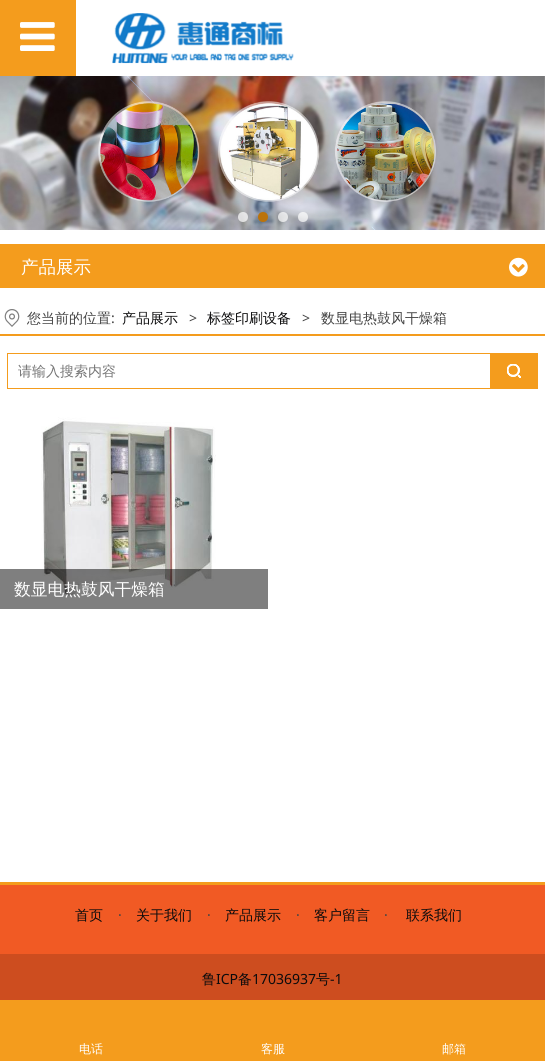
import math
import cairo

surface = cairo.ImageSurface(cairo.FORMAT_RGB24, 545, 1061)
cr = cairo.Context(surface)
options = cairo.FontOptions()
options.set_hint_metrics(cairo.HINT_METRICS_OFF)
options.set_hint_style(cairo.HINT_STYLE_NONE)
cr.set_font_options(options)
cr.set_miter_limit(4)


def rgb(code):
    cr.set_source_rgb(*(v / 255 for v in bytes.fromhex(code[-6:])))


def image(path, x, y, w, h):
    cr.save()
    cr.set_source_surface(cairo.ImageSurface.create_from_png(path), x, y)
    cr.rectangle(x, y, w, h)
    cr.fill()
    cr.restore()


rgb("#ffffff")
cr.paint()
rgb("#f49c1d")
cr.rectangle(0, 0, 76, 76)
cr.fill()
image("img/1.png", 20, 22, 35, 29)
image("img/2.png", 112, 13, 182, 51)
image("img/3.png", 0, 76, 545, 154)
cr.set_source_rgba(1, 1, 1, 0.7)
cr.arc(243, 217, 5, 0, 2 * math.pi)
cr.fill()
rgb("#bb730b")
cr.arc(263, 217, 5, 0, 2 * math.pi)
cr.fill()
cr.set_source_rgba(1, 1, 1, 0.7)
cr.arc(283, 217, 5, 0, 2 * math.pi)
cr.fill()
cr.arc(303, 217, 5, 0, 2 * math.pi)
cr.fill()
rgb("#f49c1d")
cr.rectangle(0, 244, 545, 44)
cr.fill()
image("img/4.png", 509, 257, 19, 20)
image("img/5.png", 4, 309, 16, 18)
cr.rectangle(0, 334, 545, 2)
cr.fill()
cr.rectangle(7.5, 353.5, 530, 35)
cr.set_line_width(1)
cr.stroke()
cr.rectangle(490, 354, 47, 34)
cr.fill()
image("img/6.png", 507, 364, 14, 14)
image("img/7.png", 41, 417, 175, 179)
cr.set_source_rgba(0, 0, 0, 0.5)
cr.rectangle(0, 569, 268, 40)
cr.fill()
rgb("#f49c1d")
cr.rectangle(0, 882, 545, 3)
cr.fill()
rgb("#f15a24")
cr.rectangle(0, 885, 545, 69)
cr.fill()
rgb("#cd4d1f")
cr.rectangle(0, 954, 545, 46)
cr.fill()
rgb("#f49c1d")
cr.rectangle(0, 1000, 545, 61)
cr.fill()
cr.select_font_face("WenQuanYi Zen Hei Medium")
cr.set_font_size(17.5)
rgb("#ffffff")
cr.move_to(21, 273)
cr.show_text("产品展示")
cr.set_font_size(14)
rgb("#444444")
cr.move_to(27, 323)
cr.show_text("您当前的位置")
cr.select_font_face("Noto Sans")
cr.move_to(111, 323)
cr.show_text(":")
cr.select_font_face("WenQuanYi Zen Hei Medium")
rgb("#0b0b0c")
cr.move_to(122, 323)
cr.show_text("产品展示")
cr.select_font_face("Noto Sans")
rgb("#444444")
cr.move_to(189, 323)
cr.show_text(">")
cr.select_font_face("WenQuanYi Zen Hei Medium")
rgb("#0b0b0c")
cr.move_to(207, 323)
cr.show_text("标签印刷设备")
cr.select_font_face("Noto Sans")
rgb("#444444")
cr.move_to(302, 323)
cr.show_text(">")
cr.select_font_face("WenQuanYi Zen Hei Medium")
cr.move_to(321, 323)
cr.show_text("数显电热鼓风干燥箱")
rgb("#757575")
cr.move_to(18, 376)
cr.show_text("请输入搜索内容")
cr.set_font_size(16.75)
rgb("#ffffff")
cr.move_to(14, 595)
cr.show_text("数显电热鼓风干燥箱")
cr.set_font_size(14)
rgb("#0b0b0c")
cr.move_to(75, 920)
cr.show_text("首页")
cr.select_font_face("Noto Sans")
rgb("#444444")
cr.move_to(118, 920)
cr.show_text("·")
cr.select_font_face("WenQuanYi Zen Hei Medium")
rgb("#0b0b0c")
cr.move_to(136, 920)
cr.show_text("关于我们")
cr.select_font_face("Noto Sans")
rgb("#444444")
cr.move_to(207, 920)
cr.show_text("·")
cr.select_font_face("WenQuanYi Zen Hei Medium")
rgb("#0b0b0c")
cr.move_to(225, 920)
cr.show_text("产品展示")
cr.select_font_face("Noto Sans")
rgb("#444444")
cr.move_to(296, 920)
cr.show_text("·")
cr.select_font_face("WenQuanYi Zen Hei Medium")
rgb("#0b0b0c")
cr.move_to(314, 920)
cr.show_text("客户留言")
cr.select_font_face("Noto Sans")
rgb("#444444")
cr.move_to(384, 920)
cr.show_text("·")
cr.select_font_face("WenQuanYi Zen Hei Medium")
rgb("#0b0b0c")
cr.move_to(406, 920)
cr.show_text("联系我们")
cr.move_to(202, 984)
cr.show_text("鲁")
cr.select_font_face("Noto Sans")
cr.move_to(216, 984)
cr.show_text("ICP")
cr.select_font_face("WenQuanYi Zen Hei Medium")
cr.move_to(238, 984)
cr.show_text("备")
cr.select_font_face("Noto Sans")
cr.move_to(252, 984)
cr.show_text("17036937")
cr.select_font_face("WenQuanYi Zen Hei Medium")
cr.move_to(316, 984)
cr.show_text("号")
cr.select_font_face("Noto Sans")
cr.move_to(330, 984)
cr.show_text("-1")
cr.select_font_face("WenQuanYi Zen Hei Medium")
cr.set_font_size(12)
rgb("#ffffff")
for x, y, s in [
    (79, 1053, "电话"),
    (261, 1053, "客服"),
    (442, 1053, "邮箱"),
]:
    cr.move_to(x, y)
    cr.show_text(s)
surface.write_to_png("page.png")
